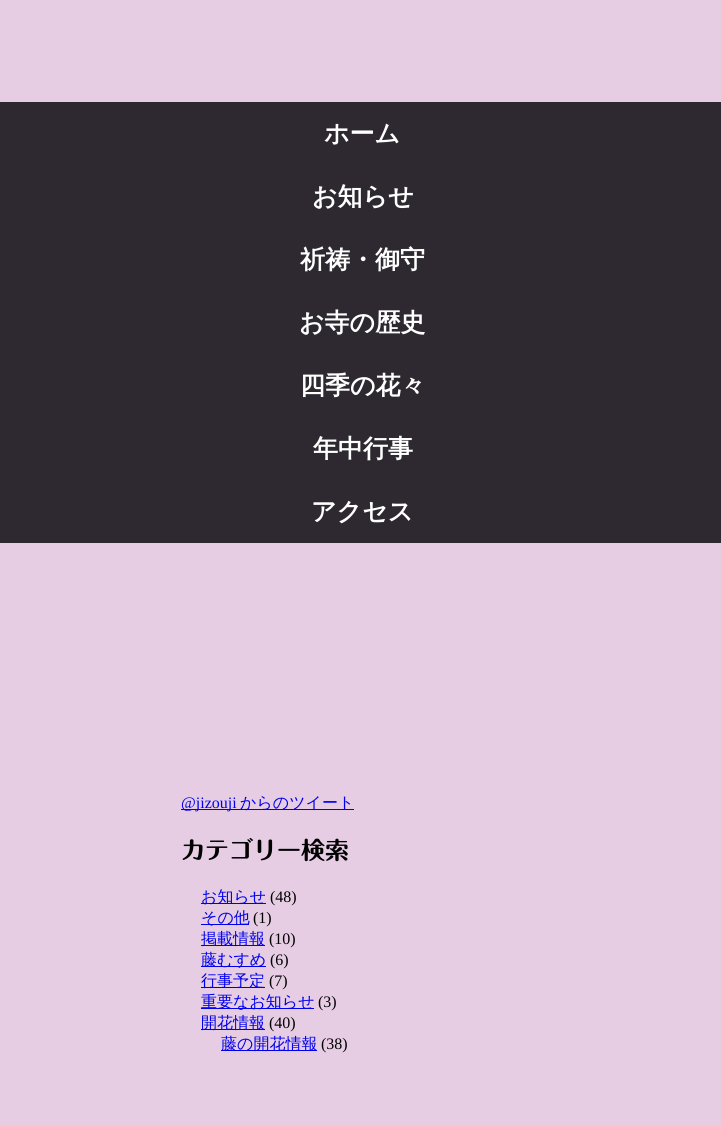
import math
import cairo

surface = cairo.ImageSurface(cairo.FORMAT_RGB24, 721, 1126)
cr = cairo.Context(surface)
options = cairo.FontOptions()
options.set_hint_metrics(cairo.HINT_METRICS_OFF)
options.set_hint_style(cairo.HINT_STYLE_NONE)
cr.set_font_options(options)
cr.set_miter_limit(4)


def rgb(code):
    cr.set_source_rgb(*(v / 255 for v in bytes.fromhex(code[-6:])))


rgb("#e6cde3")
cr.paint()
for x, y, w, h, color in [
    (0, 102, 721, 441, "#2e2930"),
    (181, 809, 173, 1, "#0000ee"),
    (201, 903, 65, 1, "#0000ee"),
    (201, 924, 48, 1, "#0000ee"),
    (201, 945, 64, 1, "#0000ee"),
    (201, 966, 65, 1, "#0000ee"),
    (201, 987, 64, 1, "#0000ee"),
    (201, 1008, 113, 1, "#0000ee"),
    (201, 1029, 64, 1, "#0000ee"),
    (221, 1050, 96, 1, "#0000ee"),
]:
    rgb(color)
    cr.rectangle(x, y, w, h)
    cr.fill()
cr.select_font_face("WenQuanYi Zen Hei", cairo.FONT_SLANT_NORMAL, cairo.FONT_WEIGHT_BOLD)
cr.set_font_size(25)
rgb("#ffffff")
for x, y, s in [
    (324, 142, "ホーム"),
    (312, 205, "お知らせ"),
    (300, 268, "祈祷・御守"),
    (299, 331, "お寺の歴史"),
    (300, 394, "四季の花々"),
    (313, 457, "年中行事"),
    (311, 520, "アクセス"),
]:
    cr.move_to(x, y)
    cr.show_text(s)
cr.select_font_face("Liberation Serif")
cr.set_font_size(16)
rgb("#0000ee")
cr.move_to(181, 808)
cr.show_text("@jizouji")
cr.select_font_face("WenQuanYi Zen Hei Medium")
cr.move_to(240, 808)
cr.show_text("からのツイート")
cr.select_font_face("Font", cairo.FONT_SLANT_NORMAL, cairo.FONT_WEIGHT_BOLD)
cr.set_font_size(24)
rgb("#000000")
cr.move_to(181, 859)
cr.show_text("カテゴリー検索")
cr.select_font_face("WenQuanYi Zen Hei Medium")
cr.set_font_size(16)
rgb("#0000ee")
cr.move_to(201, 902)
cr.show_text("お知らせ")
cr.select_font_face("Liberation Serif")
rgb("#000000")
cr.move_to(270, 902)
cr.show_text("(48)")
cr.select_font_face("WenQuanYi Zen Hei Medium")
rgb("#0000ee")
cr.move_to(201, 923)
cr.show_text("その他")
cr.select_font_face("Liberation Serif")
rgb("#000000")
cr.move_to(253, 923)
cr.show_text("(1)")
cr.select_font_face("WenQuanYi Zen Hei Medium")
rgb("#0000ee")
cr.move_to(201, 944)
cr.show_text("掲載情報")
cr.select_font_face("Liberation Serif")
rgb("#000000")
cr.move_to(269, 944)
cr.show_text("(10)")
cr.select_font_face("WenQuanYi Zen Hei Medium")
rgb("#0000ee")
cr.move_to(201, 965)
cr.show_text("藤むすめ")
cr.select_font_face("Liberation Serif")
rgb("#000000")
cr.move_to(270, 965)
cr.show_text("(6)")
cr.select_font_face("WenQuanYi Zen Hei Medium")
rgb("#0000ee")
cr.move_to(201, 986)
cr.show_text("行事予定")
cr.select_font_face("Liberation Serif")
rgb("#000000")
cr.move_to(269, 986)
cr.show_text("(7)")
cr.select_font_face("WenQuanYi Zen Hei Medium")
rgb("#0000ee")
cr.move_to(201, 1007)
cr.show_text("重要なお知らせ")
cr.select_font_face("Liberation Serif")
rgb("#000000")
cr.move_to(318, 1007)
cr.show_text("(3)")
cr.select_font_face("WenQuanYi Zen Hei Medium")
rgb("#0000ee")
cr.move_to(201, 1028)
cr.show_text("開花情報")
cr.select_font_face("Liberation Serif")
rgb("#000000")
cr.move_to(269, 1028)
cr.show_text("(40)")
cr.select_font_face("WenQuanYi Zen Hei Medium")
rgb("#0000ee")
cr.move_to(221, 1049)
cr.show_text("藤の開花情報")
cr.select_font_face("Liberation Serif")
rgb("#000000")
cr.move_to(321, 1049)
cr.show_text("(38)")
surface.write_to_png("page.png")
